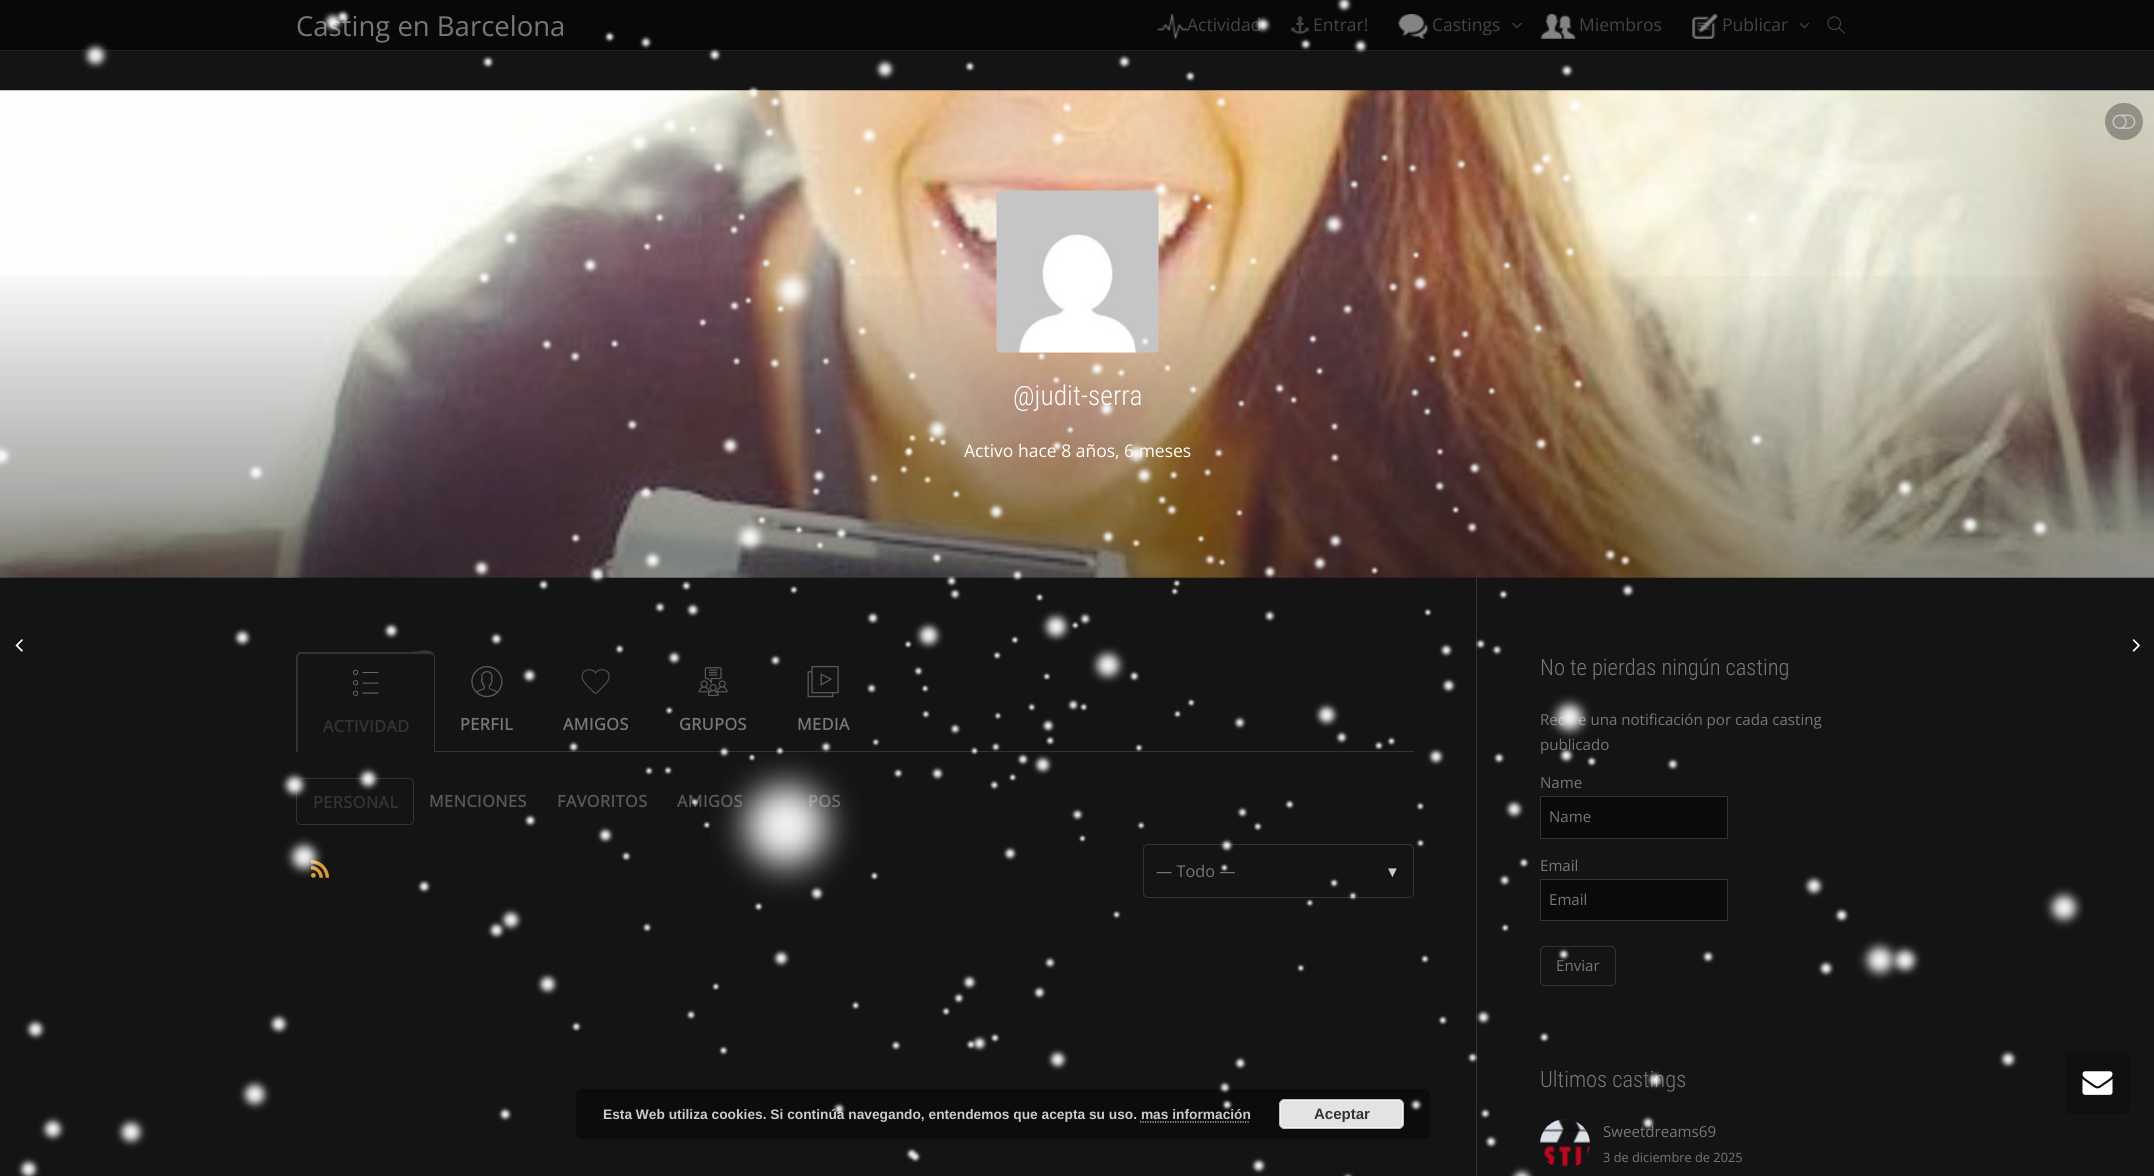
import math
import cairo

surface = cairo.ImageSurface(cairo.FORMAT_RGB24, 2154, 1176)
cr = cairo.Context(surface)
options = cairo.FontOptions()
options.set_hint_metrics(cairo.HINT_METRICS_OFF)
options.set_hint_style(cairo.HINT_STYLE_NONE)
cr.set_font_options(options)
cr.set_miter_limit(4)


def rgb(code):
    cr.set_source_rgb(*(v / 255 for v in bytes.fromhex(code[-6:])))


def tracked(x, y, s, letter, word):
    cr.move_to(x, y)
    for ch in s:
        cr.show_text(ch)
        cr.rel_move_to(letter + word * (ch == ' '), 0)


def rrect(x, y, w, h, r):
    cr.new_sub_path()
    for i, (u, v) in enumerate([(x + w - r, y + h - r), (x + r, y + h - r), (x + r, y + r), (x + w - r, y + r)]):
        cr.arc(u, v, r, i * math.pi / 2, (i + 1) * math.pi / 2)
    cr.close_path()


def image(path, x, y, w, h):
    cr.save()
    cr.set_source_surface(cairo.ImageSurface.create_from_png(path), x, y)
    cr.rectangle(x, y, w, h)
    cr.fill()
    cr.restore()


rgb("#141414")
cr.paint()
rgb("#080808")
cr.rectangle(0, 0, 2154, 50)
cr.fill()
rgb("#212121")
cr.rectangle(0, 50, 2154, 1)
cr.fill()
image("img/2.png", 1157, 14, 31, 25)
image("img/3.png", 1291, 16, 18, 18)
image("img/4.png", 1398, 14, 31, 25)
image("img/5.png", 1512, 22, 10, 7)
image("img/6.png", 1541, 14, 35, 25)
image("img/7.png", 1692, 14, 26, 25)
image("img/8.png", 1799, 22, 11, 7)
image("img/9.png", 1827, 16, 18, 18)
image("img/11.png", 0, 90, 2154, 488)
cr.set_source_rgba(0, 0, 0, 0.3)
rrect(2105, 103, 38, 37, 18.5)
cr.fill()
image("img/10.png", 2112, 114, 24, 15)
gradient = cairo.LinearGradient(1078, 90, 1078, 578)
gradient.add_color_stop_rgba(0.35, 0, 0, 0, 0)
gradient.add_color_stop_rgba(1, 0, 0, 0, 0.45)
cr.set_source(gradient)
cr.rectangle(0, 276, 2154, 302)
cr.fill()
image("img/12.png", 996, 190, 163, 163)
rgb("#333333")
cr.rectangle(1476, 578, 1, 598)
cr.fill()
cr.rectangle(296, 751, 1118, 1)
cr.fill()
cr.new_path()
cr.move_to(301, 654)
cr.line_to(299, 655)
cr.line_to(297, 654)
cr.line_to(299, 652)
cr.line_to(410, 652)
cr.curve_to(418, 652, 429, 647, 434, 654)
cr.line_to(433, 655)
cr.line_to(430, 654)
cr.close_path()
cr.fill()
cr.new_path()
cr.move_to(435, 752)
cr.line_to(435, 658)
cr.curve_to(435, 656, 434, 655, 434, 654)
cr.line_to(433, 655)
cr.line_to(434, 657)
cr.line_to(434, 751)
cr.close_path()
cr.fill()
rgb("#141414")
cr.new_path()
cr.move_to(434, 752)
cr.line_to(297, 752)
cr.line_to(298, 751)
cr.line_to(434, 751)
cr.close_path()
cr.fill()
rgb("#333333")
cr.new_path()
cr.move_to(296, 656)
cr.line_to(297, 654)
cr.line_to(299, 655)
cr.line_to(298, 658)
cr.line_to(298, 751)
cr.line_to(297, 752)
cr.line_to(296, 752)
cr.close_path()
cr.fill()
image("img/13.png", 353, 669, 26, 27)
image("img/14.png", 471, 666, 32, 32)
image("img/15.png", 581, 669, 29, 25)
image("img/16.png", 698, 667, 30, 29)
image("img/17.png", 807, 665, 32, 33)
image("img/18.png", 15, 639, 8, 13)
image("img/19.png", 2132, 639, 8, 13)
rrect(296.5, 778.5, 117, 46, 4.5)
cr.set_line_width(1)
cr.stroke()
image("img/20.png", 311, 860, 18, 18)
rrect(1143.5, 844.5, 270, 53, 4.5)
cr.stroke()
rgb("#0a0a0a")
cr.rectangle(1540.5, 796.5, 187, 42)
cr.fill_preserve()
rgb("#333333")
cr.stroke()
rgb("#0a0a0a")
cr.rectangle(1540.5, 879.5, 187, 41)
cr.fill_preserve()
rgb("#333333")
cr.stroke()
rrect(1540.5, 946.5, 75, 39, 4.5)
cr.stroke()
image("img/21.png", 1540, 1119, 50, 48)
rgb("#101010")
rrect(2065, 1051, 65, 63, 4)
cr.fill()
image("img/22.png", 2082, 1071, 31, 24)
rgb("#0c0c0c")
rrect(576, 1089, 854, 50, 6)
cr.fill()
rgb("#e3e3e3")
rrect(1279, 1099, 125, 30, 6)
cr.fill()
rrect(1280.5, 1100.5, 122, 27, 4.5)
rgb("#f6f6f6")
cr.stroke()
rrect(1279.5, 1099.5, 124, 29, 5.5)
rgb("#bbbbbb")
cr.stroke()
cr.new_path()
cr.move_to(1140, 1122)
cr.line_to(1250, 1122)
rgb("#cccccc")
cr.set_line_width(1.2)
cr.set_dash([1.25, 1.25])
cr.stroke()
cr.select_font_face("Open Sans")
cr.set_font_size(27.5)
rgb("#777777")
cr.move_to(296, 36)
cr.show_text("Casting en Barcelona")
cr.set_font_size(17.5)
rgb("#444444")
for x, y, s in [
    (1187, 31, "Actividad"),
    (1313, 31, "Entrar!"),
    (1432, 31, "Castings"),
    (1579, 31, "Miembros"),
    (1722, 31, "Publicar"),
]:
    cr.move_to(x, y)
    cr.show_text(s)
cr.select_font_face("Roboto Condensed Light")
cr.set_font_size(27.5)
rgb("#ffffff")
cr.move_to(1013, 405)
cr.show_text("@judit-serra")
cr.select_font_face("Open Sans")
cr.set_font_size(17.5)
cr.move_to(964, 457)
cr.show_text("Activo hace 8 años, 6 meses")
cr.select_font_face("Open Sans", cairo.FONT_SLANT_NORMAL, cairo.FONT_WEIGHT_BOLD)
cr.set_font_size(16.25)
rgb("#333333")
tracked(323, 732, "ACTIVIDAD", 0.5, 0)
rgb("#777777")
for x, y, s in [
    (460, 730, "PERFIL"),
    (563, 730, "AMIGOS"),
    (679, 730, "GRUPOS"),
    (797, 730, "MEDIA"),
]:
    tracked(x, y, s, 0.5, 0)
rgb("#333333")
tracked(313, 808, "PERSONAL", 0.5, 0)
rgb("#585858")
for x, y, s in [
    (429, 807, "MENCIONES"),
    (557, 807, "FAVORITOS"),
    (677, 807, "AMIGOS"),
    (808, 807, "POS"),
]:
    tracked(x, y, s, 0.5, 0)
cr.select_font_face("Open Sans")
rgb("#777777")
cr.move_to(1156, 877)
cr.show_text("— Todo —")
cr.select_font_face("Liberation Serif")
cr.set_font_size(15)
rgb("#cccccc")
cr.move_to(1385, 877)
cr.show_text("▼")
cr.select_font_face("Roboto Condensed Light")
cr.set_font_size(22.5)
rgb("#777777")
cr.move_to(1540, 675)
cr.show_text("No te pierdas ningún casting")
cr.select_font_face("Open Sans")
cr.set_font_size(15.1)
for x, y, s in [
    (1540, 725, "Rec"),
    (1578, 725, "e una notificación por cada casting"),
    (1540, 750, "publicado"),
    (1540, 788, "Name"),
    (1549, 822, "Name"),
    (1540, 871, "Email"),
    (1549, 905, "Email"),
    (1556, 971, "Enviar"),
]:
    cr.move_to(x, y)
    cr.show_text(s)
cr.select_font_face("Roboto Condensed Light")
cr.set_font_size(22.5)
cr.move_to(1540, 1087)
cr.show_text("Ultimos castings")
cr.select_font_face("Open Sans")
cr.set_font_size(15.1)
cr.move_to(1603, 1137)
cr.show_text("Sweetdreams69")
cr.set_font_size(12.8)
cr.move_to(1603, 1162)
cr.show_text("3 de diciembre de 2025")
cr.select_font_face("Liberation Sans", cairo.FONT_SLANT_NORMAL, cairo.FONT_WEIGHT_BOLD)
cr.set_font_size(13.75)
rgb("#cccccc")
cr.move_to(603, 1119)
cr.show_text("Esta Web utiliza cookies. Si continúa navegando, entendemos que acepta su uso. mas información")
cr.set_font_size(15)
rgb("#333333")
cr.move_to(1314, 1119)
cr.show_text("Aceptar")
image("img/1.png", 0, 0, 2084, 1176)
surface.write_to_png("page.png")
